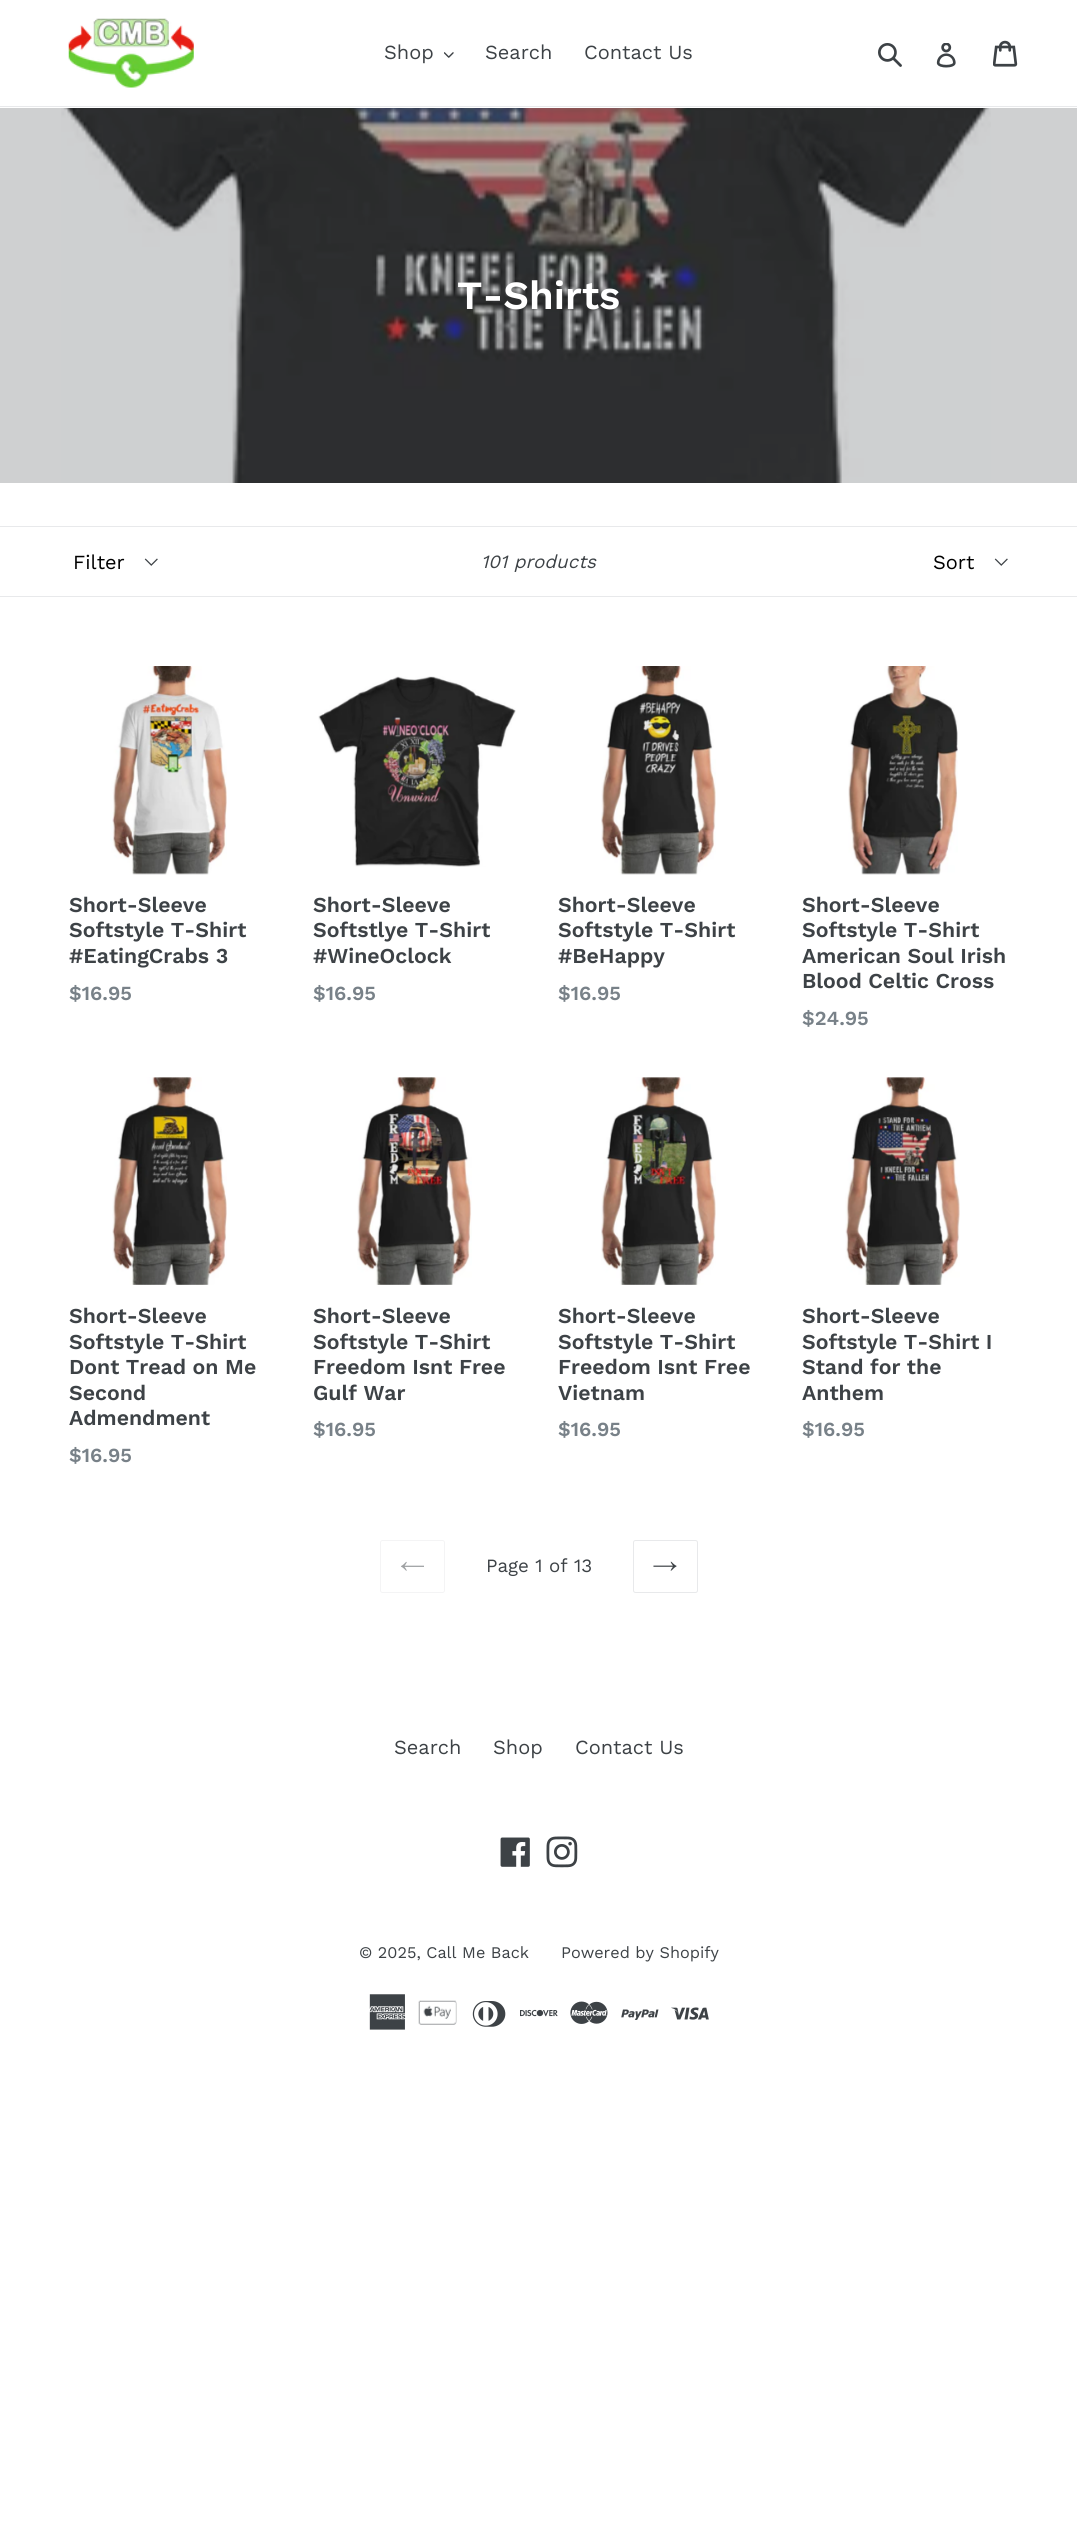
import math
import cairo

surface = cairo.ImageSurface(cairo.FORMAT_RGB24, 1077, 2536)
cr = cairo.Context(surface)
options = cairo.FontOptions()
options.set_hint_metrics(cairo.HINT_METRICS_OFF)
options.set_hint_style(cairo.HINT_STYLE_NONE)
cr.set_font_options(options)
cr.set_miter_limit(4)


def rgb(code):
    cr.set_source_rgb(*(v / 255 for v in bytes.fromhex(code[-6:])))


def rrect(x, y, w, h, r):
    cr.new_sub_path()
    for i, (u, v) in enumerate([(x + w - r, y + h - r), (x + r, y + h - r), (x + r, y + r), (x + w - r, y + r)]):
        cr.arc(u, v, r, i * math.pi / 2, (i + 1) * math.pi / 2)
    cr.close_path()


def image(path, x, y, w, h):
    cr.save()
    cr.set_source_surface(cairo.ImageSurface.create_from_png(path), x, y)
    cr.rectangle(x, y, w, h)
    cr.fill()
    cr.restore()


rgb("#ffffff")
cr.paint()
rgb("#cfd0d1")
cr.rectangle(0, 108, 1077, 375)
cr.fill()
rgb("#e8e9eb")
cr.rectangle(0, 106, 1077, 1)
cr.fill()
image("img/1.png", 68, 18, 126, 70)
image("img/2.png", 444, 52, 10, 6)
image("img/3.png", 878, 43, 24, 24)
image("img/4.png", 936, 43, 20, 25)
image("img/5.png", 993, 40, 25, 27)
image("img/6.png", 61, 108, 930, 375)
cr.rectangle(0, 526, 1077, 1)
cr.fill()
cr.rectangle(0, 596, 1077, 1)
cr.fill()
image("img/7.png", 144, 558, 14, 8)
image("img/7.png", 994, 558, 14, 8)
image("img/8.png", 110, 666, 117, 209)
image("img/9.png", 318, 676, 198, 191)
image("img/10.png", 601, 666, 115, 209)
image("img/11.png", 848, 666, 110, 209)
image("img/12.png", 112, 1077, 115, 208)
image("img/13.png", 357, 1077, 115, 208)
image("img/14.png", 601, 1077, 115, 208)
image("img/15.png", 845, 1077, 115, 208)
rrect(380.5, 1540.5, 64, 52, 2)
rgb("#f4f4f5")
cr.set_line_width(1)
cr.stroke()
image("img/16.png", 401, 1561, 23, 10)
rrect(633.5, 1540.5, 64, 52, 2)
rgb("#e8e9eb")
cr.stroke()
image("img/17.png", 653, 1561, 24, 10)
image("img/18.png", 500, 1837, 30, 30)
image("img/19.png", 546, 1836, 32, 32)
image("img/20.png", 369, 1994, 37, 36)
image("img/21.png", 418, 2000, 39, 25)
image("img/22.png", 472, 2001, 34, 26)
image("img/23.png", 520, 2009, 38, 8)
image("img/24.png", 570, 2001, 38, 23)
image("img/25.png", 621, 2009, 38, 11)
image("img/26.png", 671, 2007, 38, 13)
cr.select_font_face("Work Sans")
cr.set_font_size(20)
rgb("#3d4246")
for x, y, s in [
    (384, 59, "Shop"),
    (485, 59, "Search"),
    (584, 59, "Contact Us"),
]:
    cr.move_to(x, y)
    cr.show_text(s)
cr.select_font_face("Work Sans SemiBold")
cr.set_font_size(40)
rgb("#ffffff")
cr.move_to(457, 309)
cr.show_text("T-Shirts")
cr.select_font_face("Work Sans")
cr.set_font_size(20)
rgb("#000000")
cr.move_to(73, 569)
cr.show_text("Filter")
cr.select_font_face("Work Sans", cairo.FONT_SLANT_ITALIC)
cr.set_font_size(18.75)
rgb("#3d4246")
cr.move_to(481, 568)
cr.show_text("101 products")
cr.select_font_face("Work Sans")
cr.set_font_size(20)
rgb("#000000")
cr.move_to(933, 569)
cr.show_text("Sort")
cr.select_font_face("Work Sans SemiBold")
cr.set_font_size(21.25)
rgb("#3d4246")
for x, y, s in [
    (69, 912, "Short-Sleeve"),
    (69, 937, "Softstyle T-Shirt"),
    (69, 963, "#EatingCrabs 3"),
]:
    cr.move_to(x, y)
    cr.show_text(s)
cr.set_font_size(20)
rgb("#788188")
cr.move_to(69, 1000)
cr.show_text("$16.95")
cr.set_font_size(21.25)
rgb("#3d4246")
for x, y, s in [
    (313, 912, "Short-Sleeve"),
    (313, 937, "Softstlye T-Shirt"),
    (313, 963, "#WineOclock"),
]:
    cr.move_to(x, y)
    cr.show_text(s)
cr.set_font_size(20)
rgb("#788188")
cr.move_to(313, 1000)
cr.show_text("$16.95")
cr.set_font_size(21.25)
rgb("#3d4246")
for x, y, s in [
    (558, 912, "Short-Sleeve"),
    (558, 937, "Softstyle T-Shirt"),
    (558, 963, "#BeHappy"),
]:
    cr.move_to(x, y)
    cr.show_text(s)
cr.set_font_size(20)
rgb("#788188")
cr.move_to(558, 1000)
cr.show_text("$16.95")
cr.set_font_size(21.25)
rgb("#3d4246")
for x, y, s in [
    (802, 912, "Short-Sleeve"),
    (802, 937, "Softstyle T-Shirt"),
    (802, 963, "American Soul Irish"),
    (802, 988, "Blood Celtic Cross"),
]:
    cr.move_to(x, y)
    cr.show_text(s)
cr.set_font_size(20)
rgb("#788188")
cr.move_to(802, 1025)
cr.show_text("$24.95")
cr.set_font_size(21.25)
rgb("#3d4246")
for x, y, s in [
    (69, 1323, "Short-Sleeve"),
    (69, 1349, "Softstyle T-Shirt"),
    (69, 1374, "Dont Tread on Me"),
    (69, 1400, "Second"),
    (69, 1425, "Admendment"),
]:
    cr.move_to(x, y)
    cr.show_text(s)
cr.set_font_size(20)
rgb("#788188")
cr.move_to(69, 1462)
cr.show_text("$16.95")
cr.set_font_size(21.25)
rgb("#3d4246")
for x, y, s in [
    (313, 1323, "Short-Sleeve"),
    (313, 1349, "Softstyle T-Shirt"),
    (313, 1374, "Freedom Isnt Free"),
    (313, 1400, "Gulf War"),
]:
    cr.move_to(x, y)
    cr.show_text(s)
cr.set_font_size(20)
rgb("#788188")
cr.move_to(313, 1436)
cr.show_text("$16.95")
cr.set_font_size(21.25)
rgb("#3d4246")
for x, y, s in [
    (558, 1323, "Short-Sleeve"),
    (558, 1349, "Softstyle T-Shirt"),
    (558, 1374, "Freedom Isnt Free"),
    (558, 1400, "Vietnam"),
]:
    cr.move_to(x, y)
    cr.show_text(s)
cr.set_font_size(20)
rgb("#788188")
cr.move_to(558, 1436)
cr.show_text("$16.95")
cr.set_font_size(21.25)
rgb("#3d4246")
for x, y, s in [
    (802, 1323, "Short-Sleeve"),
    (802, 1349, "Softstyle T-Shirt I"),
    (802, 1374, "Stand for the"),
    (802, 1400, "Anthem"),
]:
    cr.move_to(x, y)
    cr.show_text(s)
cr.set_font_size(20)
rgb("#788188")
cr.move_to(802, 1436)
cr.show_text("$16.95")
cr.select_font_face("Work Sans")
cr.set_font_size(18.75)
rgb("#3d4246")
cr.move_to(486, 1572)
cr.show_text("Page 1 of 13")
cr.set_font_size(20)
for x, y, s in [
    (394, 1754, "Search"),
    (493, 1754, "Shop"),
    (575, 1754, "Contact Us"),
]:
    cr.move_to(x, y)
    cr.show_text(s)
cr.set_font_size(16.25)
cr.move_to(359, 1958)
cr.show_text("© 2025, Call Me Back")
cr.move_to(561, 1958)
cr.show_text("Powered by Shopify")
surface.write_to_png("page.png")
